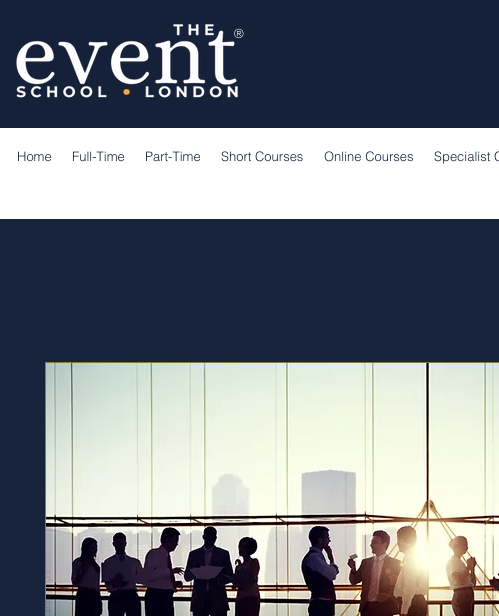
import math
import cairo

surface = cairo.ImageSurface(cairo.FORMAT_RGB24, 499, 616)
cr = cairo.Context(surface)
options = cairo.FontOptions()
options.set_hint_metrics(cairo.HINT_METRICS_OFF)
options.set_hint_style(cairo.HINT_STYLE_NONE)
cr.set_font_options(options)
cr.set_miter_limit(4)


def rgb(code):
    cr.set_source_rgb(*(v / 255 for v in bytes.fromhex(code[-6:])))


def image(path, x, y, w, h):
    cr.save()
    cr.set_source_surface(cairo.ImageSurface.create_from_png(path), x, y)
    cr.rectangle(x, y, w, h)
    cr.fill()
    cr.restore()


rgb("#ffffff")
cr.paint()
rgb("#152039")
cr.rectangle(0, 0, 499, 128)
cr.fill()
rgb("#17223b")
cr.rectangle(0, 219, 499, 397)
cr.fill()
cr.rectangle(45.5, 362.5, 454, 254)
rgb("#927348")
cr.set_line_width(1)
cr.stroke()
image("img/2.png", 46, 363, 453, 253)
cr.select_font_face("futura Light")
cr.set_font_size(12)
rgb("#ffffff")
cr.move_to(234, 38)
cr.show_text("®")
image("img/1.png", 16, 24, 222, 74)
cr.select_font_face("helvetica Light")
cr.set_font_size(13)
rgb("#152039")
for x, y, s in [
    (17, 161, "Home"),
    (72, 161, "Full-Time"),
    (145, 161, "Part-Time"),
    (221, 161, "Short Courses"),
    (324, 161, "Online Courses"),
    (434, 161, "Specialist C"),
]:
    cr.move_to(x, y)
    cr.show_text(s)
surface.write_to_png("page.png")
